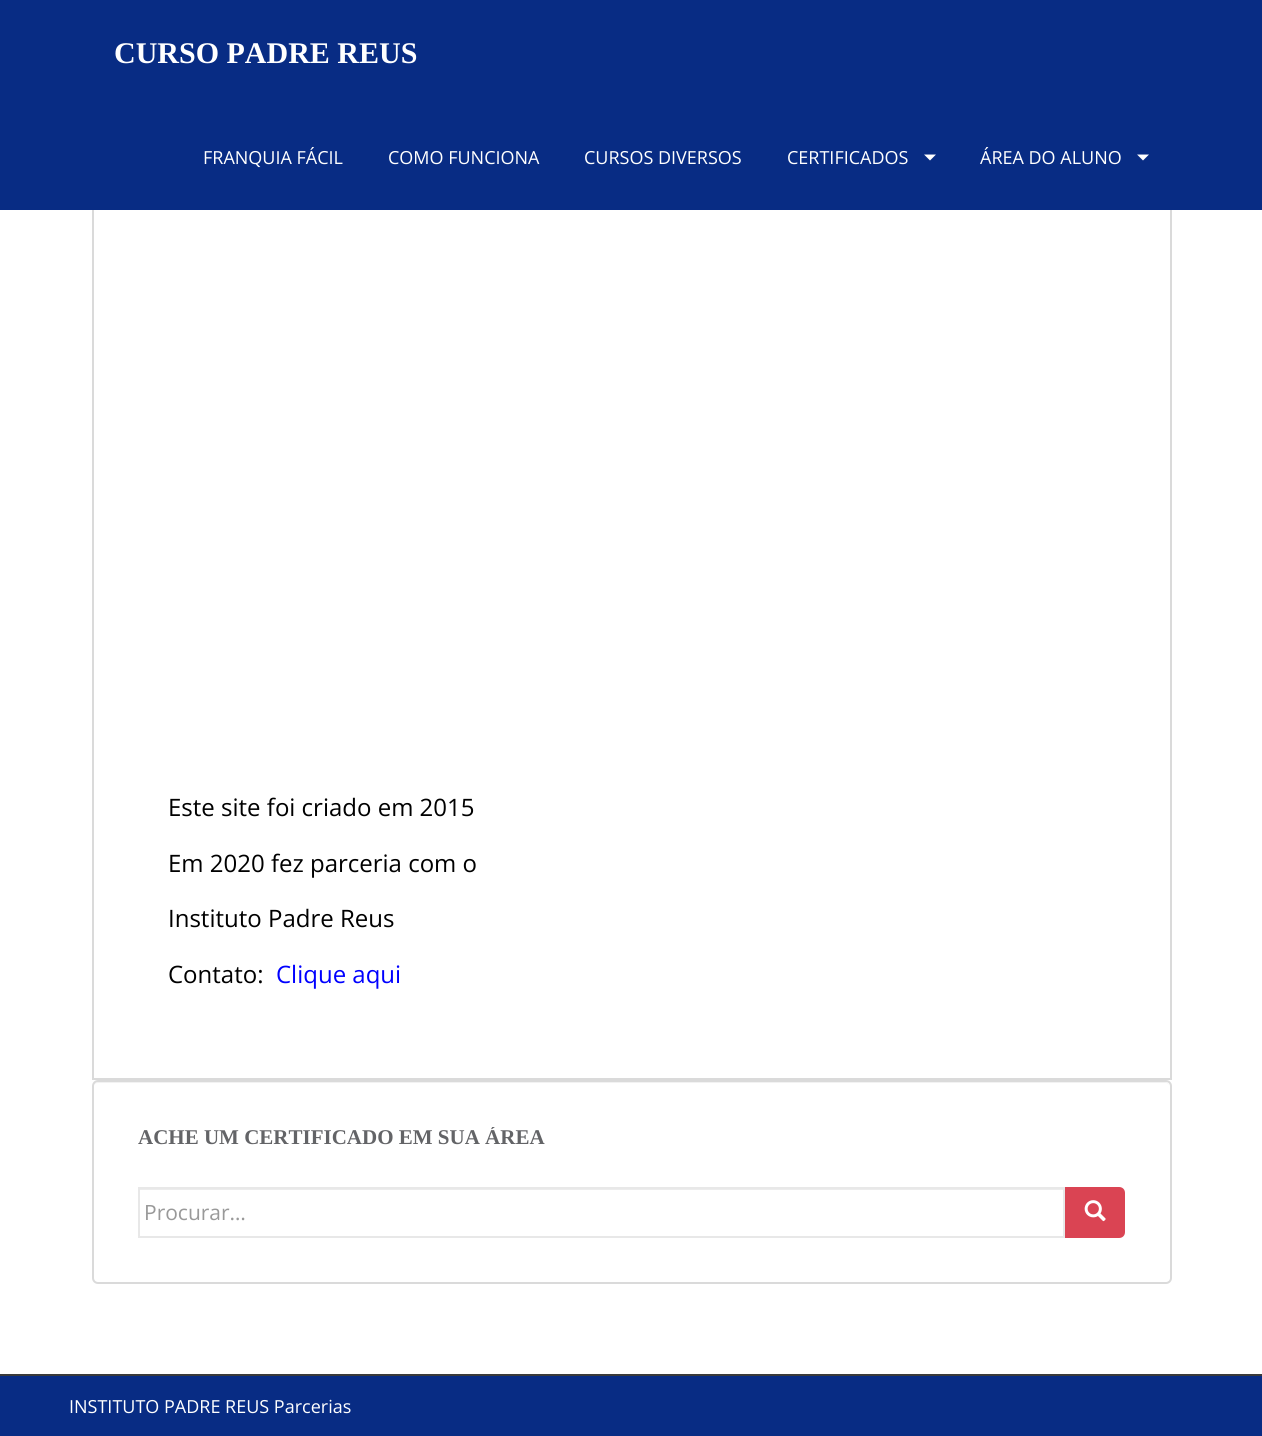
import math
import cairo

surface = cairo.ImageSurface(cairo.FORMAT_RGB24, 1262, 1436)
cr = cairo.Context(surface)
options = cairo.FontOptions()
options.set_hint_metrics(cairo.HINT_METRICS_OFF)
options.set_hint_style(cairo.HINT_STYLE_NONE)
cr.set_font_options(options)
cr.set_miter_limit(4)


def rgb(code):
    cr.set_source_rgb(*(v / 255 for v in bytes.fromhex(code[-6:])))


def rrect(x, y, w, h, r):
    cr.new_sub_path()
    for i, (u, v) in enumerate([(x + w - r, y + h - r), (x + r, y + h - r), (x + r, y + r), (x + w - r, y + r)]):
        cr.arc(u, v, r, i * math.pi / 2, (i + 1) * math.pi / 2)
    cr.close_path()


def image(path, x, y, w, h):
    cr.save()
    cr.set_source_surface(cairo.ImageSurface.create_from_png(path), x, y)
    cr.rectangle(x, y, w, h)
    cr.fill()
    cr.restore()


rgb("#ffffff")
cr.paint()
cr.rectangle(93, -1, 1078, 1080)
rgb("#dadada")
cr.stroke()
rgb("#082c84")
cr.rectangle(0, 0, 1262, 210)
cr.fill()
rgb("#ffffff")
cr.new_path()
cr.move_to(924, 154.5)
cr.line_to(936, 154.5)
cr.line_to(930, 160.5)
cr.close_path()
cr.fill()
cr.new_path()
cr.move_to(1137, 154.5)
cr.line_to(1149, 154.5)
cr.line_to(1143, 160.5)
cr.close_path()
cr.fill()
rgb("#f2f2f2")
cr.new_path()
cr.move_to(98, 1083)
cr.line_to(1166, 1083)
cr.curve_to(1168, 1083, 1170, 1085, 1170, 1088)
cr.curve_to(1170, 1085, 1168, 1082, 1165, 1082)
cr.line_to(98, 1082)
cr.curve_to(95, 1082, 93, 1085, 93, 1088)
cr.curve_to(93, 1085, 95, 1083, 98, 1083)
cr.close_path()
cr.fill()
rrect(93, 1081, 1078, 202, 5)
rgb("#dadada")
cr.stroke()
rgb("#ececec")
cr.rectangle(140, 1189, 924, 1)
cr.fill()
cr.rectangle(139, 1188, 925, 49)
rgb("#e8e8e8")
cr.stroke()
rgb("#da4453")
cr.new_path()
cr.move_to(1066, 1188)
cr.line_to(1119, 1188)
cr.curve_to(1122, 1188, 1124, 1190, 1124, 1193)
cr.line_to(1124, 1232)
cr.curve_to(1124, 1235, 1122, 1237, 1119, 1237)
cr.line_to(1066, 1237)
cr.close_path()
cr.fill_preserve()
cr.stroke()
image("img/1.png", 1084, 1200, 22, 22)
rgb("#082c84")
cr.rectangle(0, 1376, 1262, 60)
cr.fill()
rgb("#3a3a3a")
cr.rectangle(0, 1374, 1262, 2)
cr.fill()
cr.select_font_face("Liberation Serif", cairo.FONT_SLANT_NORMAL, cairo.FONT_WEIGHT_BOLD)
cr.set_font_size(30)
rgb("#ffffff")
cr.move_to(114, 63)
cr.show_text("CURSO PADRE REUS")
cr.select_font_face("Open Sans")
cr.set_font_size(18)
for x, y, s in [
    (203, 164, "FRANQUIA FÁCIL"),
    (388, 164, "COMO FUNCIONA"),
    (584, 164, "CURSOS DIVERSOS"),
    (787, 164, "CERTIFICADOS"),
    (980, 164, "ÁREA DO ALUNO"),
]:
    cr.move_to(x, y)
    cr.show_text(s)
cr.set_font_size(24)
rgb("#000000")
for x, y, s in [
    (168, 816, "Este site foi criado em 2015"),
    (168, 872, "Em 2020 fez parceria com o"),
    (168, 927, "Instituto Padre Reus"),
    (168, 983, "Contato:"),
]:
    cr.move_to(x, y)
    cr.show_text(s)
rgb("#0000ff")
cr.move_to(276, 983)
cr.show_text("Clique aqui")
cr.save()
cr.rectangle(138, 1127, 987, 111)
cr.clip()
cr.select_font_face("Liberation Serif", cairo.FONT_SLANT_NORMAL, cairo.FONT_WEIGHT_BOLD)
cr.set_font_size(21)
rgb("#636467")
cr.move_to(138, 1144)
cr.show_text("ACHE UM CERTIFICADO EM SUA ÁREA")
cr.restore()
cr.set_font_size(21)
rgb("#999999")
cr.move_to(144, 1220)
cr.show_text("Procurar…")
cr.set_font_size(18)
rgb("#ffffff")
cr.move_to(69, 1413)
cr.show_text("INSTITUTO PADRE REUS Parcerias")
surface.write_to_png("page.png")
